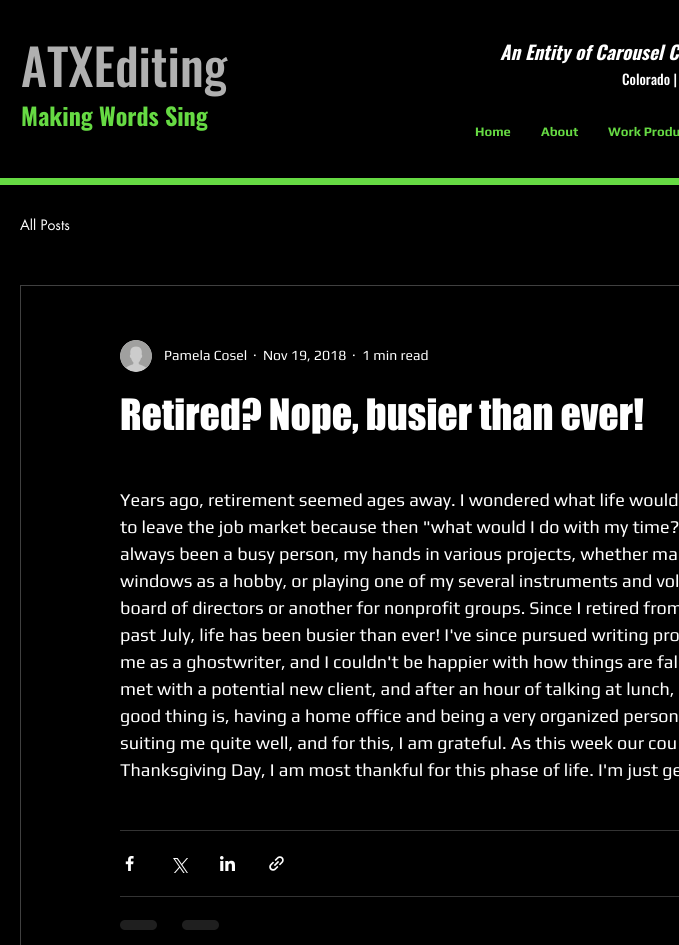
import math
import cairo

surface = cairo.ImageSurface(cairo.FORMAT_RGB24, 679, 945)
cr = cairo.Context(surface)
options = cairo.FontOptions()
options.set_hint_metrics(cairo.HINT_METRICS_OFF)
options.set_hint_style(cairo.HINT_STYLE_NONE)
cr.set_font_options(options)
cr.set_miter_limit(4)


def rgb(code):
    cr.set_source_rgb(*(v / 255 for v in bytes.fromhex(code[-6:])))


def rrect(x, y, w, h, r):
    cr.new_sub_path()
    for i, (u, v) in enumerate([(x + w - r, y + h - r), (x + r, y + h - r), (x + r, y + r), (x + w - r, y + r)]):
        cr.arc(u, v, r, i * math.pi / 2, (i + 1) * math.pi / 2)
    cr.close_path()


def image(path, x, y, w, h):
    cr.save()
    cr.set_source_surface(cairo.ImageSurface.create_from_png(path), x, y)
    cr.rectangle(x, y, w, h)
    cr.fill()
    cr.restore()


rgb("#000000")
cr.paint()
rgb("#66da43")
cr.rectangle(0, 178, 679, 7)
cr.fill()
cr.rectangle(20.5, 285.5, 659, 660)
rgb("#404040")
cr.set_line_width(1)
cr.stroke()
image("img/1.png", 120, 340, 32, 32)
rgb("#333333")
cr.rectangle(120, 830, 559, 1)
cr.fill()
image("img/2.png", 125, 856, 9, 15)
image("img/3.png", 173, 858, 15, 15)
image("img/4.png", 220, 856, 15, 15)
image("img/5.png", 269, 856, 15, 15)
cr.rectangle(120, 896, 559, 1)
cr.fill()
rgb("#1f1f1f")
rrect(120, 920, 37, 10, 5)
cr.fill()
rrect(182, 920, 37, 10, 5)
cr.fill()
cr.select_font_face("Oswald Medium")
cr.set_font_size(50)
rgb("#b0b0b0")
cr.move_to(21, 87)
cr.show_text("ATXEditing")
cr.select_font_face("Oswald", cairo.FONT_SLANT_ITALIC, cairo.FONT_WEIGHT_BOLD)
cr.set_font_size(19)
rgb("#ffffff")
cr.move_to(500, 60)
cr.show_text("An Entity of Carousel C")
cr.select_font_face("Oswald Medium")
cr.set_font_size(14)
cr.move_to(622, 85)
cr.show_text("Colorado |")
cr.select_font_face("Oswald", cairo.FONT_SLANT_NORMAL, cairo.FONT_WEIGHT_BOLD)
cr.set_font_size(24)
rgb("#66da43")
cr.move_to(21, 126)
cr.show_text("Making Words Sing")
cr.select_font_face("Play", cairo.FONT_SLANT_NORMAL, cairo.FONT_WEIGHT_BOLD)
cr.set_font_size(13)
for x, y, s in [
    (475, 136, "Home"),
    (541, 136, "About"),
    (608, 136, "Work Produ"),
]:
    cr.move_to(x, y)
    cr.show_text(s)
cr.select_font_face("futura")
cr.set_font_size(14)
rgb("#ffffff")
cr.move_to(20, 230)
cr.show_text("All Posts")
cr.select_font_face("Play")
for x, y, s in [
    (164, 360, "Pamela Cosel"),
    (253, 360, "·"),
    (263, 360, "Nov 19, 2018"),
    (352, 360, "·"),
    (362, 360, "1 min read"),
]:
    cr.move_to(x, y)
    cr.show_text(s)
cr.select_font_face("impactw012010")
cr.set_font_size(40)
cr.move_to(120, 430)
cr.show_text("Retired? Nope, busier than ever!")
cr.select_font_face("Play")
cr.set_font_size(18)
for x, y, s in [
    (120, 506, "Years ago, retirement seemed ages away. I wondered what life would"),
    (120, 533, "to leave the job market because then \"what would I do with my time?"),
    (120, 560, "always been a busy person, my hands in various projects, whether ma"),
    (120, 587, "windows as a hobby, or playing one of my several instruments and vol"),
    (120, 614, "board of directors or another for nonprofit groups. Since I retired from"),
    (120, 641, "past July, life has been busier than ever! I've since pursued writing pro"),
    (120, 668, "me as a ghostwriter, and I couldn't be happier with how things are fal"),
    (120, 695, "met with a potential new client, and after an hour of talking at lunch,"),
    (120, 722, "good thing is, having a home office and being a very organized person"),
    (120, 749, "suiting me quite well, and for this, I am grateful. As this week our cou"),
    (120, 776, "Thanksgiving Day, I am most thankful for this phase of life. I'm just ge"),
]:
    cr.move_to(x, y)
    cr.show_text(s)
surface.write_to_png("page.png")
